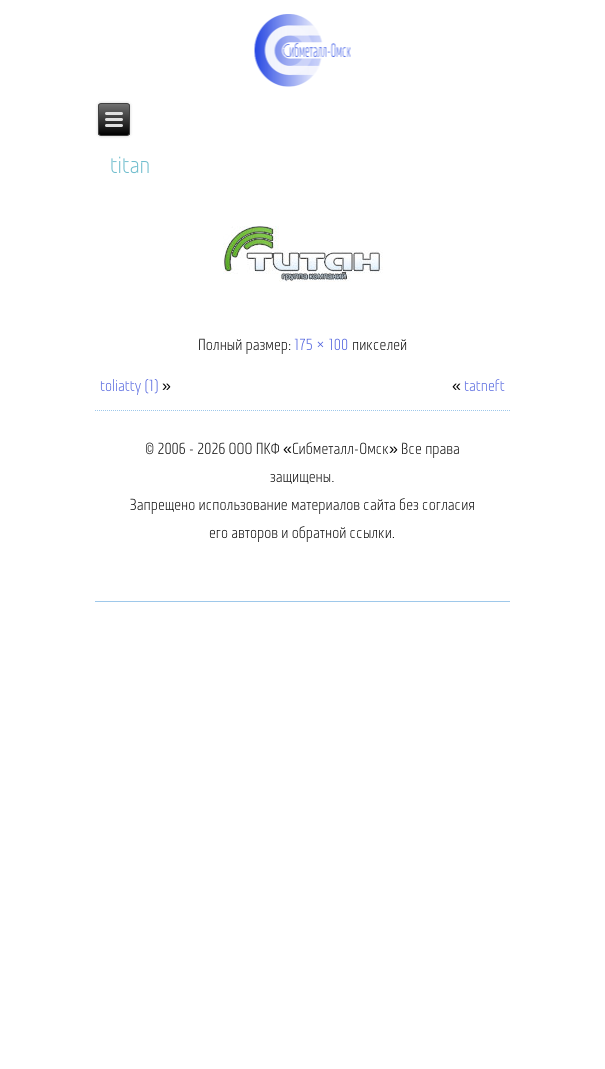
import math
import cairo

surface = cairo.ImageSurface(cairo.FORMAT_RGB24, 605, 1069)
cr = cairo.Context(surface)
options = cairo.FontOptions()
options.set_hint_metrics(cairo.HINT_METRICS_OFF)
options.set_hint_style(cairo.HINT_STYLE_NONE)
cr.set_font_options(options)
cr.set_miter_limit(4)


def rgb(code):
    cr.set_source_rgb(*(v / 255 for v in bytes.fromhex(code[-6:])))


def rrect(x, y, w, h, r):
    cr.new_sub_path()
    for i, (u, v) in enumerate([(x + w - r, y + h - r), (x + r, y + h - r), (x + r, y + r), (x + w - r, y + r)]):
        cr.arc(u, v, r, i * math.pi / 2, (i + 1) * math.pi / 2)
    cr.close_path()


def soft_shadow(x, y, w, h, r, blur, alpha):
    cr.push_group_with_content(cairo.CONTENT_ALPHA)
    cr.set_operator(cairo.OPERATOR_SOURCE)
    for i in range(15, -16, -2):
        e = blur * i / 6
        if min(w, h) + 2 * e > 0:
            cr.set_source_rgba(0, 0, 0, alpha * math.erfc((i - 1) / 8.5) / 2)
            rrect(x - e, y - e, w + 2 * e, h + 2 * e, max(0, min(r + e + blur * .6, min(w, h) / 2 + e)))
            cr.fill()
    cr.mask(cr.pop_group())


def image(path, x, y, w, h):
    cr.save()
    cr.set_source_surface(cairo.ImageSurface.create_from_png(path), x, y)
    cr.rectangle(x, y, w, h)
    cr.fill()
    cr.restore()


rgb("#ffffff")
cr.paint()
image("img/1.png", 254, 14, 97, 73)
rgb("#9ec8ea")
cr.rectangle(95, 601, 415, 1)
cr.fill()
rgb("#000000")
soft_shadow(98, 103, 32, 33, 3, 1.5, 0.2)
cr.save()
rrect(98, 103, 32, 33, 3)
cr.clip()
gradient = cairo.LinearGradient(114, 104, 114, 135)
gradient.add_color_stop_rgba(0, 0.439, 0.439, 0.439, 1)
gradient.add_color_stop_rgba(1, 0, 0, 0, 1)
cr.set_source(gradient)
cr.rectangle(98, 104, 32, 31)
cr.fill()
cr.restore()
rrect(98.5, 103.5, 31, 32, 2.5)
rgb("#404040")
cr.set_line_width(1)
cr.stroke()
rgb("#e0e0e0")
rrect(105, 112, 18, 3, 1.5)
cr.fill()
rrect(105, 118, 18, 3, 1.5)
cr.fill()
rrect(105, 124, 18, 3, 1.5)
cr.fill()
image("img/2.png", 223, 226, 160, 56)
cr.new_path()
cr.move_to(95, 410.5)
cr.line_to(510, 410.5)
rgb("#9ec8ea")
cr.set_dash([1, 1])
cr.stroke()
cr.select_font_face("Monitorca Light")
cr.set_font_size(24)
rgb("#70bdcd")
cr.move_to(110, 173)
cr.show_text("titan")
cr.set_font_size(16)
rgb("#000000")
cr.move_to(198, 350)
cr.show_text("Полный размер:")
rgb("#4b5edd")
cr.move_to(294, 350)
cr.show_text("175 × 100")
rgb("#000000")
cr.move_to(352, 350)
cr.show_text("пикселей")
rgb("#4b5edd")
cr.move_to(100, 391)
cr.show_text("toliatty (1)")
cr.select_font_face("Liberation Sans")
rgb("#000000")
cr.move_to(162, 391)
cr.show_text("»")
cr.move_to(452, 391)
cr.show_text("«")
cr.select_font_face("Monitorca Light")
rgb("#4b5edd")
cr.move_to(464, 391)
cr.show_text("tatneft")
rgb("#000000")
cr.move_to(145, 454)
cr.show_text("© 2006 - 2026 ООО ПКФ")
cr.select_font_face("Liberation Sans")
cr.move_to(283, 454)
cr.show_text("«")
cr.select_font_face("Monitorca Light")
cr.move_to(292, 454)
cr.show_text("Сибметалл-Омск")
cr.select_font_face("Liberation Sans")
cr.move_to(389, 454)
cr.show_text("»")
cr.select_font_face("Monitorca Light")
for x, y, s in [
    (401, 454, "Все права"),
    (270, 482, "защищены."),
    (130, 510, "Запрещено использование материалов сайта без согласия"),
    (209, 538, "его авторов и обратной ссылки."),
]:
    cr.move_to(x, y)
    cr.show_text(s)
surface.write_to_png("page.png")
